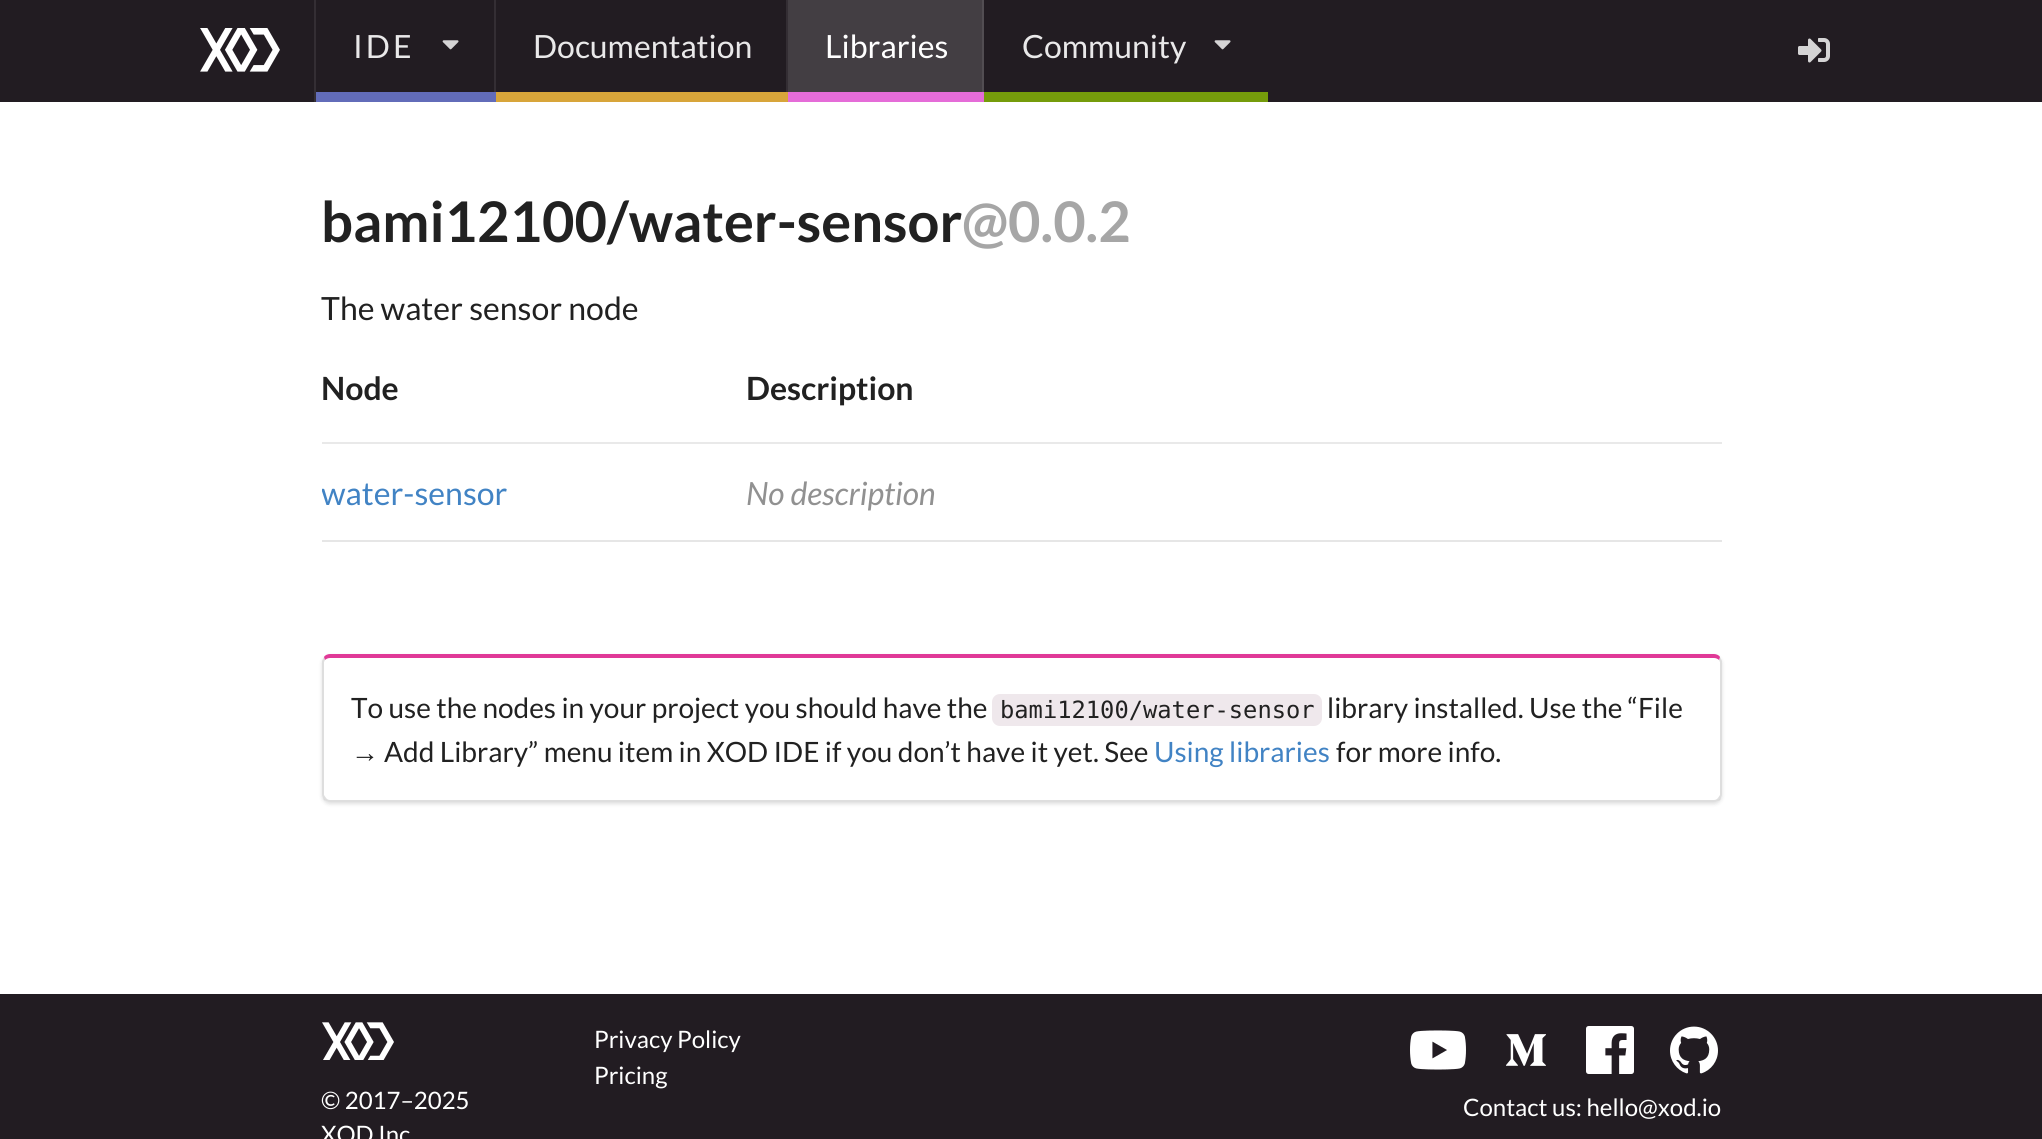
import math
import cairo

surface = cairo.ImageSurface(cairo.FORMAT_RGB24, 2042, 1139)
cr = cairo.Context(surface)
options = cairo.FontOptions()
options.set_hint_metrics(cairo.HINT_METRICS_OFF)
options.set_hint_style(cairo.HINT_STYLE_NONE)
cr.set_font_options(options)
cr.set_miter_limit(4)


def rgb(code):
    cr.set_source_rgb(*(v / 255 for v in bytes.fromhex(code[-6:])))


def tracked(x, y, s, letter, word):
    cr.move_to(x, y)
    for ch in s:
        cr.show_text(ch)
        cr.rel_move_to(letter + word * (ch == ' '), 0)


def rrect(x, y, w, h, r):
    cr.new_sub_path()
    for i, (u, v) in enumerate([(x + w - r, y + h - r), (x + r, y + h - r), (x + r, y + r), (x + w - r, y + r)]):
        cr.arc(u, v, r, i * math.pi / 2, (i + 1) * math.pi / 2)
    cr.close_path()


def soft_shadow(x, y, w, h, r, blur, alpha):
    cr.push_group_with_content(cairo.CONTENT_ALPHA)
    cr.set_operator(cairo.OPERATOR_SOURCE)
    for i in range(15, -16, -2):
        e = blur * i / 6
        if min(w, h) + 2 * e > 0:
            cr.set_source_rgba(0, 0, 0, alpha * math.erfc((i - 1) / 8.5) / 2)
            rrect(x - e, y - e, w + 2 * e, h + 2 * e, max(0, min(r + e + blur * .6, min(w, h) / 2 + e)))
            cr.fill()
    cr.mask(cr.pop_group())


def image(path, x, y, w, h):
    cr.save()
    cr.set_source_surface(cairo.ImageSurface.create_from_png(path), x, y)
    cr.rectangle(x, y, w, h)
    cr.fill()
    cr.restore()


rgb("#ffffff")
cr.paint()
rgb("#221c22")
cr.rectangle(0, 0, 2042, 102)
cr.fill()
image("img/1.png", 200, 28, 80, 44)
rgb("#342e34")
cr.rectangle(314, 0, 2, 102)
cr.fill()
rgb("#626cb9")
cr.rectangle(316, 92, 180, 10)
cr.fill()
image("img/2.png", 442, 40, 17, 10)
for x, y, w, h, color in [
    (494, 0, 2, 92, "#342e34"),
    (496, 92, 292, 10, "#d8a53a"),
    (786, 0, 2, 92, "#342e34"),
    (788, 0, 194, 92, "#433e43"),
    (788, 92, 196, 10, "#e56cd8"),
    (982, 0, 2, 92, "#524d52"),
    (984, 92, 284, 10, "#759c0b"),
]:
    rgb(color)
    cr.rectangle(x, y, w, h)
    cr.fill()
image("img/2.png", 1214, 40, 17, 10)
image("img/3.png", 1798, 38, 32, 25)
rgb("#e9e9e9")
cr.rectangle(322, 442, 1400, 2)
cr.fill()
rgb("#e6e6e6")
cr.rectangle(322, 540, 1400, 2)
cr.fill()
rgb("#222426")
soft_shadow(322, 656, 1400, 148, 8, 2, 0.15)
rgb("#ffffff")
rrect(322, 654, 1400, 148, 8)
cr.fill()
rgb("#e03997")
cr.new_path()
cr.move_to(330, 654)
cr.curve_to(328, 654, 325, 655, 324, 657)
cr.line_to(325, 660)
cr.curve_to(326, 659, 328, 658, 330, 658)
cr.line_to(1714, 658)
cr.curve_to(1716, 658, 1718, 659, 1719, 660)
cr.line_to(1720, 657)
cr.curve_to(1719, 655, 1716, 654, 1714, 654)
cr.close_path()
cr.fill()
cr.set_source_rgba(0.133, 0.141, 0.149, 0.15)
cr.new_path()
cr.move_to(1722, 794)
cr.line_to(1722, 662)
cr.curve_to(1722, 660, 1721, 659, 1720, 657)
cr.line_to(1719, 660)
cr.line_to(1720, 662)
cr.line_to(1720, 795)
cr.line_to(1718, 798)
cr.line_to(1720, 800)
cr.curve_to(1721, 798, 1722, 796, 1722, 794)
cr.close_path()
cr.fill()
cr.new_path()
cr.move_to(330, 802)
cr.line_to(1714, 802)
cr.curve_to(1716, 802, 1718, 801, 1720, 800)
cr.line_to(1718, 798)
cr.curve_to(1717, 799, 1716, 800, 1714, 800)
cr.line_to(330, 800)
cr.curve_to(328, 800, 327, 799, 326, 798)
cr.line_to(324, 800)
cr.curve_to(326, 801, 328, 802, 330, 802)
cr.close_path()
cr.fill()
cr.new_path()
cr.move_to(322, 662)
cr.line_to(322, 794)
cr.curve_to(322, 796, 323, 798, 324, 800)
cr.line_to(326, 798)
cr.line_to(324, 795)
cr.line_to(324, 662)
cr.line_to(325, 660)
cr.line_to(324, 657)
cr.curve_to(323, 659, 322, 660, 322, 662)
cr.close_path()
cr.fill()
rgb("#efe8ec")
rrect(992, 694, 330, 32, 8)
cr.fill()
rgb("#221c22")
cr.rectangle(0, 994, 2042, 145)
cr.fill()
image("img/4.png", 322, 1022, 72, 38)
image("img/5.png", 1410, 1030, 56, 40)
image("img/6.png", 1506, 1034, 40, 32)
image("img/7.png", 1586, 1026, 48, 48)
image("img/8.png", 1670, 1026, 48, 48)
cr.select_font_face("Lato")
cr.set_font_size(32)
rgb("#e9e8e9")
tracked(353, 58, "IDE", 3, 0)
cr.move_to(533, 58)
cr.show_text("Documentation")
rgb("#ffffff")
cr.move_to(825, 58)
cr.show_text("Libraries")
rgb("#e9e8e9")
cr.move_to(1022, 58)
cr.show_text("Community")
cr.select_font_face("Lato", cairo.FONT_SLANT_NORMAL, cairo.FONT_WEIGHT_BOLD)
cr.set_font_size(56)
rgb("#212121")
cr.move_to(321, 242)
cr.show_text("bami12100/water-sensor")
rgb("#a6a6a6")
cr.move_to(962, 242)
cr.show_text("@0.0.2")
cr.select_font_face("Lato")
cr.set_font_size(32)
rgb("#212121")
cr.move_to(321, 320)
cr.show_text("The water sensor node")
cr.select_font_face("Lato", cairo.FONT_SLANT_NORMAL, cairo.FONT_WEIGHT_BOLD)
cr.move_to(321, 400)
cr.show_text("Node")
cr.move_to(746, 400)
cr.show_text("Description")
cr.save()
cr.rectangle(322, 444, 400, 98)
cr.clip()
cr.select_font_face("Lato")
rgb("#4183c4")
cr.move_to(321, 505)
cr.show_text("water-sensor")
cr.restore()
cr.select_font_face("Lato", cairo.FONT_SLANT_ITALIC)
rgb("#919191")
cr.move_to(746, 505)
cr.show_text("No description")
cr.select_font_face("Lato")
cr.set_font_size(28)
rgb("#212121")
cr.move_to(351, 718)
cr.show_text("To use the nodes in your project you should have the")
cr.select_font_face("DejaVu Sans Mono")
cr.set_font_size(23.75)
cr.move_to(1000, 718)
cr.show_text("bami12100/water-sensor")
cr.select_font_face("Lato")
cr.set_font_size(28)
cr.move_to(1327, 718)
cr.show_text("library installed. Use the “File")
cr.select_font_face("Liberation Sans")
cr.move_to(351, 762)
cr.show_text("→")
cr.select_font_face("Lato")
cr.move_to(384, 762)
cr.show_text("Add Library” menu item in XOD IDE if you don’t have it yet. See")
rgb("#4183c4")
cr.move_to(1154, 762)
cr.show_text("Using libraries")
rgb("#212121")
cr.move_to(1336, 762)
cr.show_text("for more info.")
cr.set_font_size(24)
rgb("#ffffff")
for x, y, s in [
    (594, 1048, "Privacy Policy"),
    (594, 1084, "Pricing"),
    (321, 1109, "© 2017–2025"),
    (321, 1143, "XOD Inc"),
    (1463, 1116, "Contact us: hello@xod.io"),
]:
    cr.move_to(x, y)
    cr.show_text(s)
surface.write_to_png("page.png")
